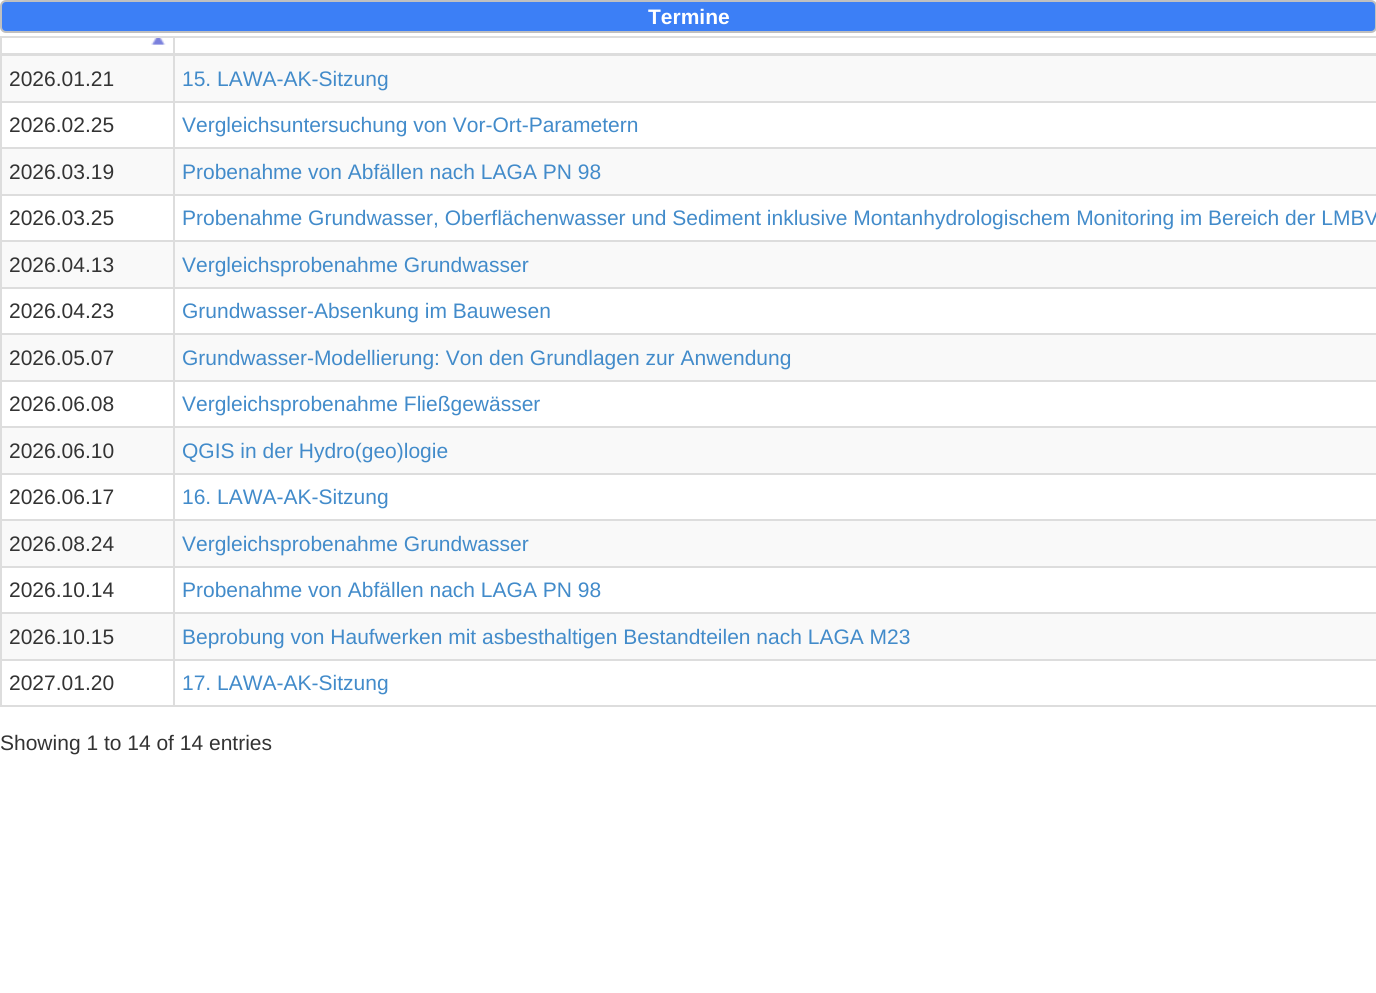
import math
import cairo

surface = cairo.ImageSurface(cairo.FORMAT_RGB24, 1376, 993)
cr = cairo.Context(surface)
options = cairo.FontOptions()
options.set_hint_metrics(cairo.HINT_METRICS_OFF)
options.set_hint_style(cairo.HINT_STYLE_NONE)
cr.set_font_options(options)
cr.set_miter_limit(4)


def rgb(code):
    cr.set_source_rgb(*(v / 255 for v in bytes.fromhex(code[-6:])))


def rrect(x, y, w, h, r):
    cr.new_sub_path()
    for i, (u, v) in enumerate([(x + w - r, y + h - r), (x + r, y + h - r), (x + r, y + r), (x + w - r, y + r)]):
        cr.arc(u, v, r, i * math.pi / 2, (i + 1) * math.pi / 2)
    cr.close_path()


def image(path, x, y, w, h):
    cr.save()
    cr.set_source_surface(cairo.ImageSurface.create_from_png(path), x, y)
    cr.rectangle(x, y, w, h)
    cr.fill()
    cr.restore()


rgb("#ffffff")
cr.paint()
rgb("#3c7ff6")
rrect(1, 1, 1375, 31, 5)
cr.fill_preserve()
rgb("#c0c0c0")
cr.stroke()
for x, y, w, h, color in [
    (0, 36, 1376, 2, "#dddddd"),
    (0, 705, 1376, 2, "#dddddd"),
    (0, 36, 2, 671, "#dddddd"),
]:
    rgb(color)
    cr.rectangle(x, y, w, h)
    cr.fill()
image("img/1.png", 151, 38, 15, 7)
for x, y, w, h, color in [
    (173, 101, 1203, 2, "#dddddd"),
    (173, 147, 1203, 2, "#dddddd"),
    (173, 194, 1203, 2, "#dddddd"),
    (173, 240, 1203, 2, "#dddddd"),
    (173, 287, 1203, 2, "#dddddd"),
    (173, 333, 1203, 2, "#dddddd"),
    (173, 380, 1203, 2, "#dddddd"),
    (173, 426, 1203, 2, "#dddddd"),
    (173, 473, 1203, 2, "#dddddd"),
    (173, 519, 1203, 2, "#dddddd"),
    (173, 566, 1203, 2, "#dddddd"),
    (173, 612, 1203, 2, "#dddddd"),
    (173, 659, 1203, 2, "#dddddd"),
    (173, 659, 2, 48, "#dddddd"),
    (0, 659, 174, 2, "#dddddd"),
    (173, 612, 2, 48, "#dddddd"),
    (0, 612, 174, 2, "#dddddd"),
    (173, 566, 2, 48, "#dddddd"),
    (0, 566, 174, 2, "#dddddd"),
    (173, 519, 2, 48, "#dddddd"),
    (0, 519, 174, 2, "#dddddd"),
    (173, 473, 2, 48, "#dddddd"),
    (0, 473, 174, 2, "#dddddd"),
    (173, 426, 2, 48, "#dddddd"),
    (0, 426, 174, 2, "#dddddd"),
    (173, 380, 2, 48, "#dddddd"),
    (0, 380, 174, 2, "#dddddd"),
    (173, 333, 2, 48, "#dddddd"),
    (0, 333, 174, 2, "#dddddd"),
    (173, 287, 2, 48, "#dddddd"),
    (0, 287, 174, 2, "#dddddd"),
    (173, 240, 2, 48, "#dddddd"),
    (0, 240, 174, 2, "#dddddd"),
    (173, 194, 2, 48, "#dddddd"),
    (0, 194, 174, 2, "#dddddd"),
    (173, 147, 2, 48, "#dddddd"),
    (0, 147, 174, 2, "#dddddd"),
    (173, 101, 2, 48, "#dddddd"),
    (0, 101, 174, 2, "#dddddd"),
    (173, 36, 2, 66, "#dddddd"),
    (0, 53, 1376, 3, "#dddddd"),
    (2, 56, 171, 45, "#f9f9f9"),
    (175, 56, 1201, 45, "#f9f9f9"),
    (2, 149, 171, 45, "#f9f9f9"),
    (175, 149, 1201, 45, "#f9f9f9"),
    (2, 242, 171, 45, "#f9f9f9"),
    (175, 242, 1201, 45, "#f9f9f9"),
    (2, 335, 171, 45, "#f9f9f9"),
    (175, 335, 1201, 45, "#f9f9f9"),
    (2, 428, 171, 45, "#f9f9f9"),
    (175, 428, 1201, 45, "#f9f9f9"),
    (2, 521, 171, 45, "#f9f9f9"),
    (175, 521, 1201, 45, "#f9f9f9"),
    (2, 614, 171, 45, "#f9f9f9"),
    (175, 614, 1201, 45, "#f9f9f9"),
]:
    rgb(color)
    cr.rectangle(x, y, w, h)
    cr.fill()
cr.select_font_face("Liberation Sans", cairo.FONT_SLANT_NORMAL, cairo.FONT_WEIGHT_BOLD)
cr.set_font_size(21)
rgb("#ffffff")
cr.move_to(648, 24)
cr.show_text("Termine")
cr.select_font_face("Liberation Sans")
rgb("#333333")
cr.move_to(9, 86)
cr.show_text("2026.01.21")
rgb("#428bca")
cr.move_to(182, 86)
cr.show_text("15. LAWA-AK-Sitzung")
rgb("#333333")
cr.move_to(9, 132)
cr.show_text("2026.02.25")
rgb("#428bca")
cr.move_to(182, 132)
cr.show_text("Vergleichsuntersuchung von Vor-Ort-Parametern")
rgb("#333333")
cr.move_to(9, 179)
cr.show_text("2026.03.19")
rgb("#428bca")
cr.move_to(182, 179)
cr.show_text("Probenahme von Abfällen nach LAGA PN 98")
rgb("#333333")
cr.move_to(9, 225)
cr.show_text("2026.03.25")
rgb("#428bca")
cr.move_to(182, 225)
cr.show_text("Probenahme Grundwasser, Oberflächenwasser und Sediment inklusive Montanhydrologischem Monitoring im Bereich der LMBV")
rgb("#333333")
cr.move_to(9, 272)
cr.show_text("2026.04.13")
rgb("#428bca")
cr.move_to(182, 272)
cr.show_text("Vergleichsprobenahme Grundwasser")
rgb("#333333")
cr.move_to(9, 318)
cr.show_text("2026.04.23")
rgb("#428bca")
cr.move_to(182, 318)
cr.show_text("Grundwasser-Absenkung im Bauwesen")
rgb("#333333")
cr.move_to(9, 365)
cr.show_text("2026.05.07")
rgb("#428bca")
cr.move_to(182, 365)
cr.show_text("Grundwasser-Modellierung: Von den Grundlagen zur Anwendung")
rgb("#333333")
cr.move_to(9, 411)
cr.show_text("2026.06.08")
rgb("#428bca")
cr.move_to(182, 411)
cr.show_text("Vergleichsprobenahme Fließgewässer")
rgb("#333333")
cr.move_to(9, 458)
cr.show_text("2026.06.10")
rgb("#428bca")
cr.move_to(182, 458)
cr.show_text("QGIS in der Hydro(geo)logie")
rgb("#333333")
cr.move_to(9, 504)
cr.show_text("2026.06.17")
rgb("#428bca")
cr.move_to(182, 504)
cr.show_text("16. LAWA-AK-Sitzung")
rgb("#333333")
cr.move_to(9, 551)
cr.show_text("2026.08.24")
rgb("#428bca")
cr.move_to(182, 551)
cr.show_text("Vergleichsprobenahme Grundwasser")
rgb("#333333")
cr.move_to(9, 597)
cr.show_text("2026.10.14")
rgb("#428bca")
cr.move_to(182, 597)
cr.show_text("Probenahme von Abfällen nach LAGA PN 98")
rgb("#333333")
cr.move_to(9, 644)
cr.show_text("2026.10.15")
rgb("#428bca")
cr.move_to(182, 644)
cr.show_text("Beprobung von Haufwerken mit asbesthaltigen Bestandteilen nach LAGA M23")
rgb("#333333")
cr.move_to(9, 690)
cr.show_text("2027.01.20")
rgb("#428bca")
cr.move_to(182, 690)
cr.show_text("17. LAWA-AK-Sitzung")
rgb("#333333")
cr.move_to(0, 750)
cr.show_text("Showing 1 to 14 of 14 entries")
surface.write_to_png("page.png")
